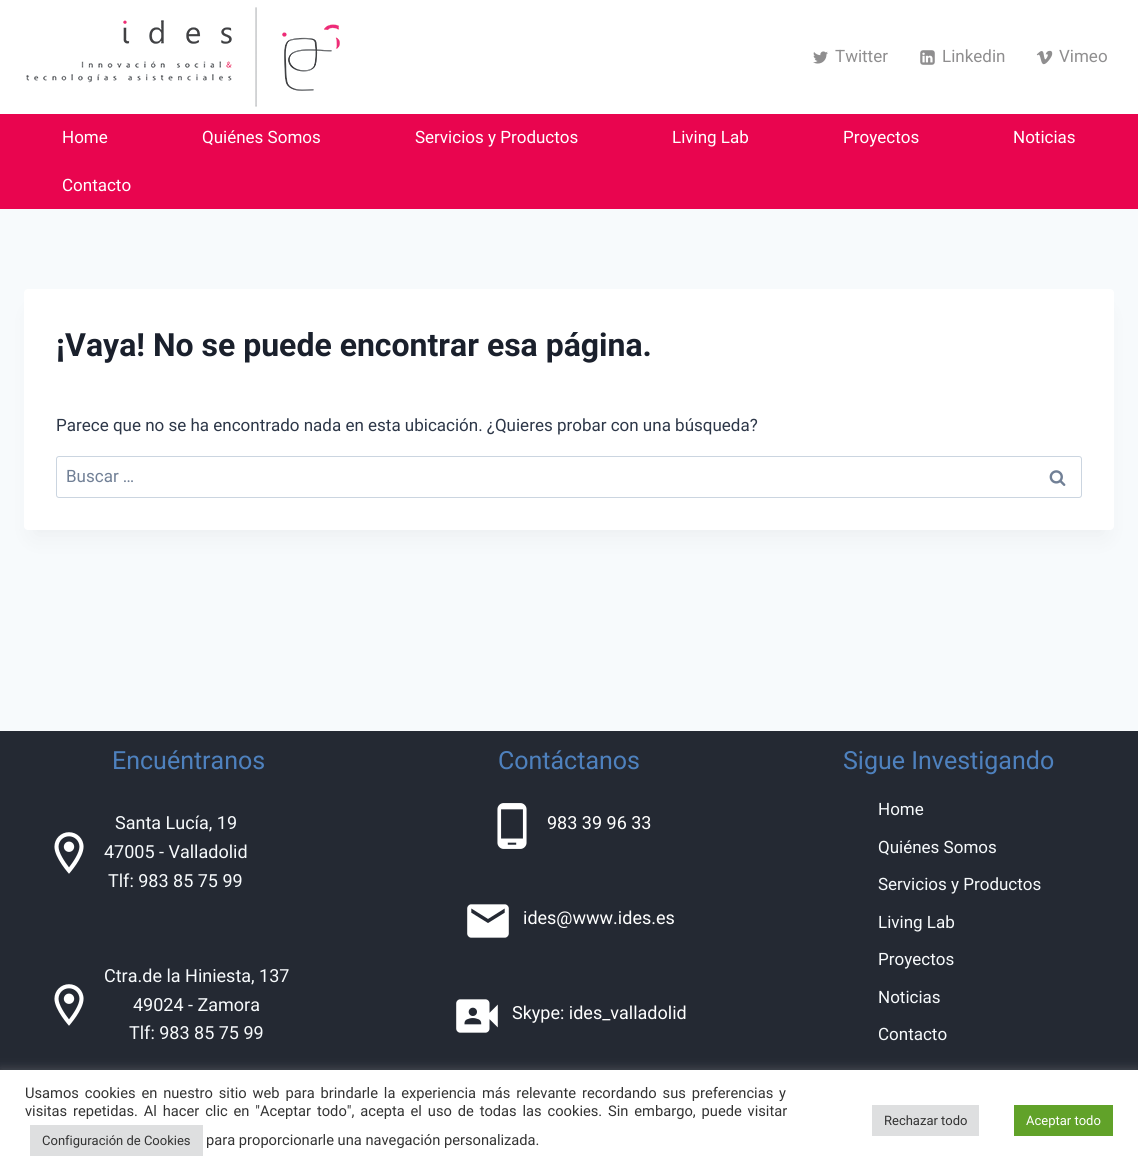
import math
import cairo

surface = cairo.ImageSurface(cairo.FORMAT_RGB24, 1138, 1170)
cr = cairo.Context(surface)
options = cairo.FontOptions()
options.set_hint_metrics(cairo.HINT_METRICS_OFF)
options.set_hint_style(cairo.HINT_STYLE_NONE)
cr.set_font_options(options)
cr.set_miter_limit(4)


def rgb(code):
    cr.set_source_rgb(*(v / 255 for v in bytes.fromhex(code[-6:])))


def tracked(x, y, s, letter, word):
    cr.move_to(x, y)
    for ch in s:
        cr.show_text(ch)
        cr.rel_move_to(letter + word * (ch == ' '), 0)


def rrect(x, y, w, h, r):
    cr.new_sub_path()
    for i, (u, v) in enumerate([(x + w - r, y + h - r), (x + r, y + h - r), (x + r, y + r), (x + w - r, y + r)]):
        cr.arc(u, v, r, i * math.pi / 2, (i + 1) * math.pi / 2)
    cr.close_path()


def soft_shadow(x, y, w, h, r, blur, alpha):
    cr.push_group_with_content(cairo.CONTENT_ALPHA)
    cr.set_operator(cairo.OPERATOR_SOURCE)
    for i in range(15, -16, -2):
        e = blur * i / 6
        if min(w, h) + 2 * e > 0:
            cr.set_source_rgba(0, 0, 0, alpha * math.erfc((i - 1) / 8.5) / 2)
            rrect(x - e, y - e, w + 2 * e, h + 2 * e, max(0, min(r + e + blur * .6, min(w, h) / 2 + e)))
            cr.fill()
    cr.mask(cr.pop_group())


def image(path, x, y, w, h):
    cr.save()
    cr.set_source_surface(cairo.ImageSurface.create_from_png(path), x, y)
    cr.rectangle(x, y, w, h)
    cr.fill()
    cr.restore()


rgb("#f7fafc")
cr.paint()
rgb("#ffffff")
cr.rectangle(0, 0, 1138, 114)
cr.fill()
image("img/1.png", 26, 7, 314, 100)
image("img/2.png", 813, 51, 15, 13)
image("img/3.png", 920, 50, 15, 15)
image("img/4.png", 1036, 50, 17, 15)
rgb("#e9054f")
cr.rectangle(0, 114, 1138, 95)
cr.fill()
rgb("#000000")
soft_shadow(34, 314, 1070, 221, 0, 12.5, 0.05)
rgb("#ffffff")
rrect(24, 289, 1090, 241, 4)
cr.fill()
rrect(56.5, 456.5, 1025, 41, 2.5)
rgb("#cbd5e0")
cr.set_line_width(1)
cr.stroke()
image("img/5.png", 1049, 470, 17, 16)
rgb("#242933")
cr.rectangle(0, 731, 1138, 339)
cr.fill()
image("img/6.png", 54, 832, 30, 42)
image("img/6.png", 54, 984, 30, 42)
image("img/7.png", 497, 803, 30, 46)
image("img/8.png", 467, 904, 42, 34)
image("img/9.png", 456, 999, 42, 34)
rgb("#acabab")
soft_shadow(0, 1069, 1138, 100, 0, 5, 0.3)
for x, y, w, h, color in [
    (0, 1070, 1138, 100, "#ffffff"),
    (30, 1125, 173, 31, "#dedfe0"),
    (872, 1105, 107, 31, "#dedfe0"),
    (1014, 1105, 99, 31, "#61a229"),
]:
    rgb(color)
    cr.rectangle(x, y, w, h)
    cr.fill()
cr.select_font_face("Roboto")
cr.set_font_size(17)
rgb("#8f8e8f")
for x, y, s in [
    (835, 62, "Twitter"),
    (942, 62, "Linkedin"),
    (1059, 62, "Vimeo"),
]:
    cr.move_to(x, y)
    cr.show_text(s)
rgb("#ffffff")
for x, y, s in [
    (62, 143, "Home"),
    (202, 143, "Quiénes Somos"),
    (415, 143, "Servicios y Productos"),
    (672, 143, "Living Lab"),
    (843, 143, "Proyectos"),
    (1013, 143, "Noticias"),
    (62, 191, "Contacto"),
]:
    cr.move_to(x, y)
    cr.show_text(s)
cr.select_font_face("Roboto", cairo.FONT_SLANT_NORMAL, cairo.FONT_WEIGHT_BOLD)
cr.set_font_size(32)
rgb("#1a202c")
cr.move_to(56, 356)
cr.show_text("¡Vaya! No se puede encontrar esa página.")
cr.select_font_face("Roboto")
cr.set_font_size(17)
rgb("#2d3748")
cr.move_to(56, 431)
cr.show_text("Parece que no se ha encontrado nada en esta ubicación. ¿Quieres probar con una búsqueda?")
rgb("#718096")
cr.move_to(66, 482)
cr.show_text("Buscar …")
cr.set_font_size(25)
rgb("#4e81be")
cr.move_to(112, 769)
cr.show_text("Encuéntranos")
cr.set_font_size(18)
rgb("#f7fafc")
for x, y, s in [
    (115, 829, "Santa Lucía, 19"),
    (104, 858, "47005 - Valladolid"),
    (108, 887, "Tlf: 983 85 75 99"),
    (104, 982, "Ctra.de la Hiniesta, 137"),
    (133, 1011, "49024 - Zamora"),
    (129, 1039, "Tlf: 983 85 75 99"),
]:
    cr.move_to(x, y)
    cr.show_text(s)
cr.set_font_size(25)
rgb("#4e81be")
cr.move_to(498, 769)
cr.show_text("Contáctanos")
cr.set_font_size(18)
rgb("#ffffff")
for x, y, s in [
    (547, 829, "983 39 96 33"),
    (523, 924, "ides@www.ides.es"),
    (512, 1019, "Skype: ides_valladolid"),
]:
    cr.move_to(x, y)
    cr.show_text(s)
cr.set_font_size(25)
rgb("#4e81be")
cr.move_to(843, 769)
cr.show_text("Sigue Investigando")
cr.set_font_size(17)
rgb("#f7fafc")
for x, y, s in [
    (878, 815, "Home"),
    (878, 853, "Quiénes Somos"),
    (878, 890, "Servicios y Productos"),
    (878, 928, "Living Lab"),
    (878, 965, "Proyectos"),
    (878, 1003, "Noticias"),
    (878, 1040, "Contacto"),
]:
    cr.move_to(x, y)
    cr.show_text(s)
cr.set_font_size(14.67)
rgb("#333333")
tracked(25, 1098, "Usamos cookies en nuestro sitio web para brindarle la experiencia más relevante recordando sus preferencias y", 0, 2.25)
tracked(25, 1116, "visitas repetidas. Al hacer clic en \"Aceptar todo\", acepta el uso de todas las cookies. Sin embargo, puede visitar", 0, 2.25)
cr.set_font_size(13)
cr.move_to(42, 1145)
cr.show_text("Configuración de Cookies")
cr.set_font_size(14.67)
cr.move_to(206, 1145)
cr.show_text("para proporcionarle una navegación personalizada.")
cr.set_font_size(13)
cr.move_to(884, 1125)
cr.show_text("Rechazar todo")
rgb("#ffffff")
cr.move_to(1026, 1125)
cr.show_text("Aceptar todo")
surface.write_to_png("page.png")
